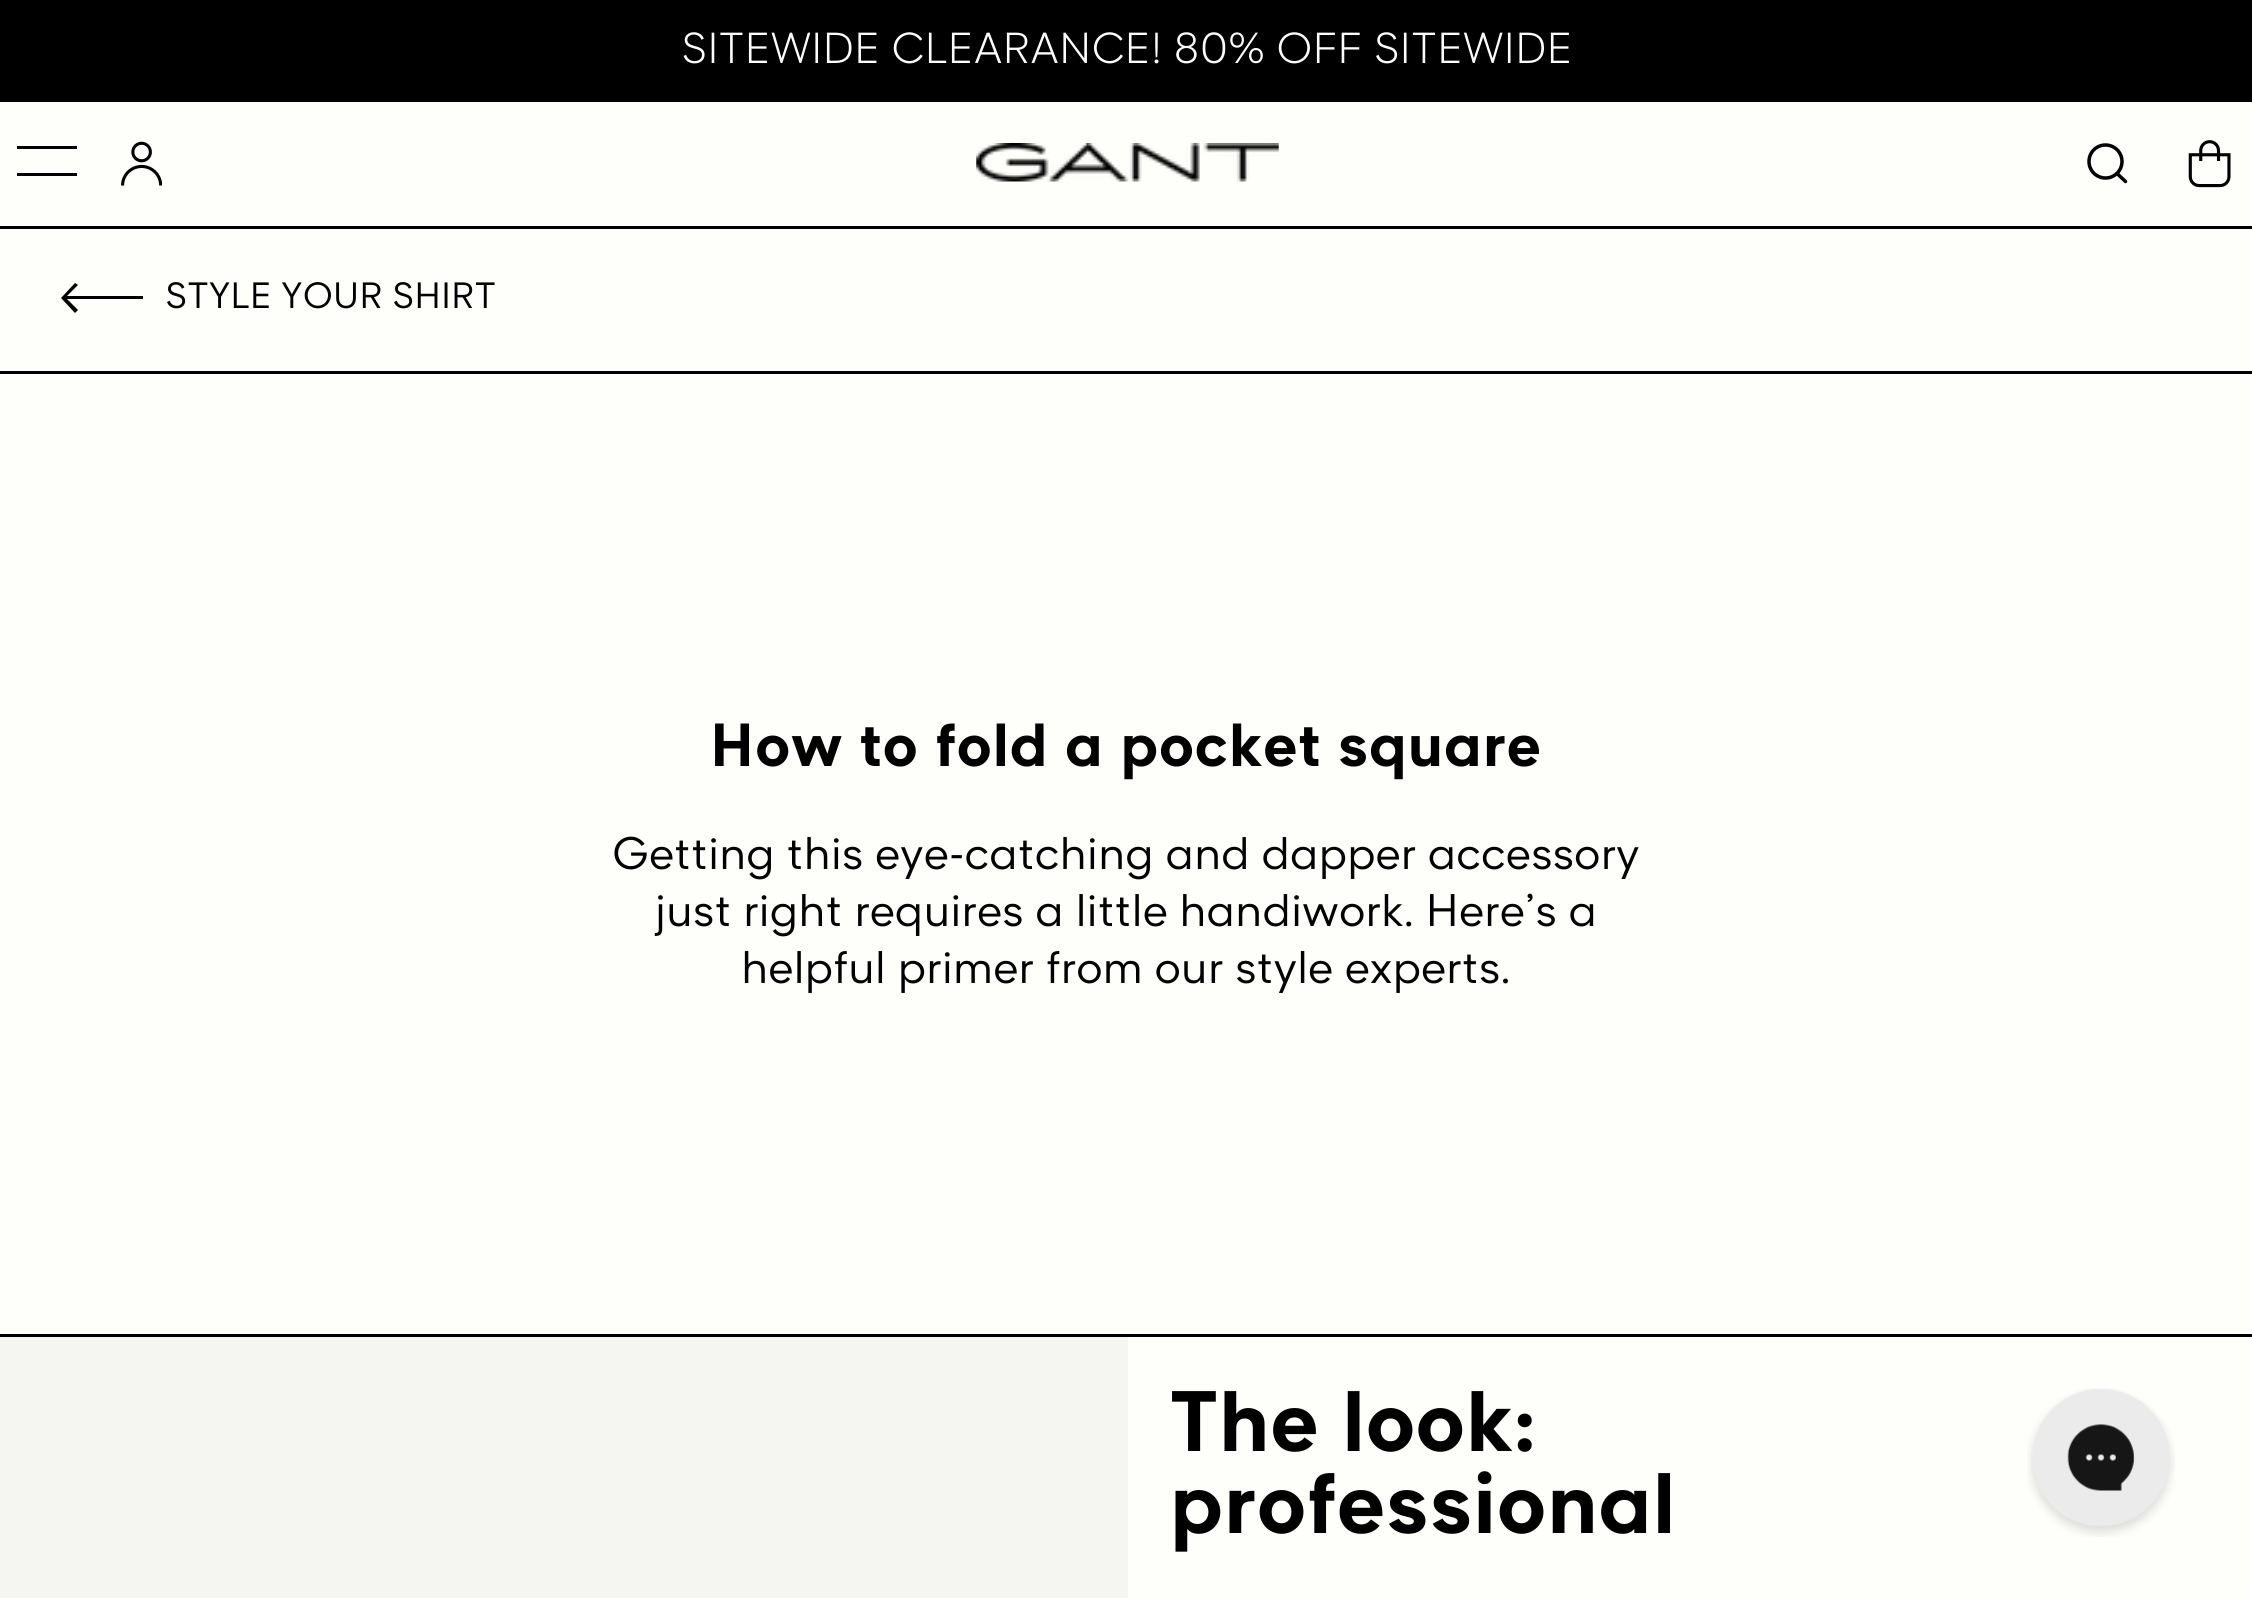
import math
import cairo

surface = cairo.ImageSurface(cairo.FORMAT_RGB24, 2252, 1598)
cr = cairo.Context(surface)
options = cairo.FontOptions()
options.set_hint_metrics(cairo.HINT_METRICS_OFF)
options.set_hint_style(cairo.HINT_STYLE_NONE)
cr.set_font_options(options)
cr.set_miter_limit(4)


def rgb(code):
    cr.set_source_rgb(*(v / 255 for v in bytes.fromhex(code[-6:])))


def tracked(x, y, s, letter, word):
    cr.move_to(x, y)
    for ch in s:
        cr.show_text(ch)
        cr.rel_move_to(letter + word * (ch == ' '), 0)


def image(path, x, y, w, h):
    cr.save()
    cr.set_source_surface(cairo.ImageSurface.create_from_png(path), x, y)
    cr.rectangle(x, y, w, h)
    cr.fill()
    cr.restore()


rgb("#fefefb")
cr.paint()
for x, y, w, h, color in [
    (0, 0, 2252, 102, "#000000"),
    (0, 226, 2252, 3, "#000000"),
    (17, 146, 60, 3, "#000000"),
    (17, 173, 60, 3, "#000000"),
]:
    rgb(color)
    cr.rectangle(x, y, w, h)
    cr.fill()
image("img/1.png", 121, 141, 41, 45)
image("img/2.png", 976, 143, 303, 39)
cr.new_path()
cr.move_to(2117, 173.5)
cr.line_to(2125.5, 181.5)
cr.set_line_width(3.5)
cr.set_line_cap(cairo.LINE_CAP_ROUND)
cr.set_line_join(cairo.LINE_JOIN_ROUND)
cr.stroke()
cr.arc(2105.5, 161.5, 16.5, 0, 2 * math.pi)
cr.set_line_cap(cairo.LINE_CAP_BUTT)
cr.set_line_join(cairo.LINE_JOIN_MITER)
cr.stroke()
image("img/3.png", 2188, 140, 43, 48)
cr.rectangle(0, 371, 2252, 3)
cr.fill()
cr.save()
cr.rectangle(33, 281, 110, 35)
cr.clip()
cr.set_fill_rule(cairo.FILL_RULE_EVEN_ODD)
cr.new_path()
cr.move_to(67, 296)
cr.line_to(170, 296)
cr.line_to(170, 299)
cr.line_to(67, 299)
cr.line_to(78, 310)
cr.line_to(75, 313)
cr.line_to(61, 298)
cr.line_to(75, 283)
cr.line_to(78, 285)
cr.close_path()
cr.fill()
cr.restore()
cr.rectangle(0, 1334, 2252, 3)
cr.fill()
rgb("#f5f5f1")
cr.rectangle(0, 1337, 1128, 261)
cr.fill()
image("img/4.png", 2027, 1388, 148, 149)
cr.select_font_face("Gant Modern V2 Light")
cr.set_font_size(41.8)
rgb("#ffffff")
cr.move_to(681, 63)
cr.show_text("SITEWIDE CLEARANCE! 80% OFF SITEWIDE")
cr.select_font_face("Gant Modern V2")
cr.set_font_size(35.25)
rgb("#000000")
cr.move_to(165, 308)
cr.show_text("STYLE YOUR SHIRT")
cr.select_font_face("Gant Modern V2", cairo.FONT_SLANT_NORMAL, cairo.FONT_WEIGHT_BOLD)
cr.set_font_size(58.5)
tracked(710, 766, "How to fold a pocket square", 1.3, 0)
cr.select_font_face("Gant Modern V2")
cr.set_font_size(44)
for x, y, s in [
    (612, 869, "Getting this eye-catching and dapper accessory"),
    (655, 926, "just right requires a little handiwork. Here’s a"),
    (741, 983, "helpful primer from our style experts."),
]:
    cr.move_to(x, y)
    cr.show_text(s)
cr.select_font_face("Gant Modern V2", cairo.FONT_SLANT_NORMAL, cairo.FONT_WEIGHT_BOLD)
cr.set_font_size(82.5)
tracked(1170, 1451, "The look:", 1.3, 0)
tracked(1170, 1533, "professional", 1.3, 0)
surface.write_to_png("page.png")
